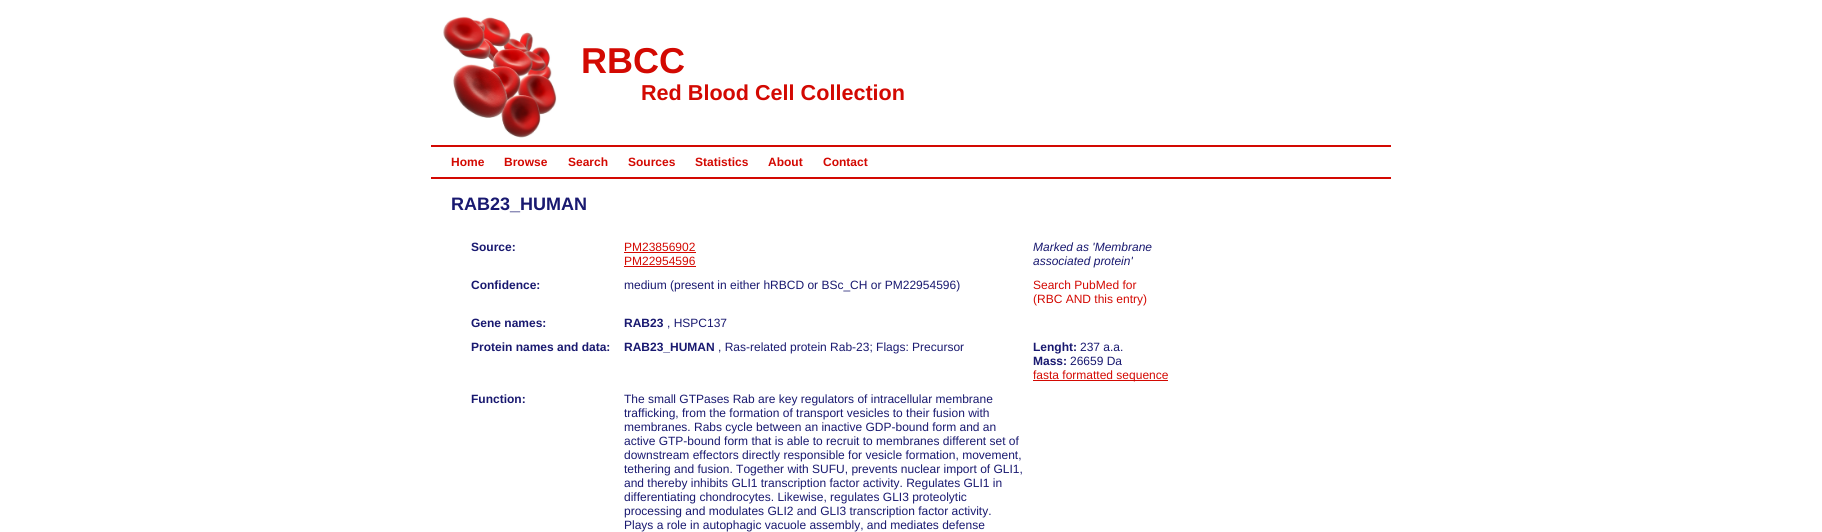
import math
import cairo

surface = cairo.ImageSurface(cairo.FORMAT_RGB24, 1822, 532)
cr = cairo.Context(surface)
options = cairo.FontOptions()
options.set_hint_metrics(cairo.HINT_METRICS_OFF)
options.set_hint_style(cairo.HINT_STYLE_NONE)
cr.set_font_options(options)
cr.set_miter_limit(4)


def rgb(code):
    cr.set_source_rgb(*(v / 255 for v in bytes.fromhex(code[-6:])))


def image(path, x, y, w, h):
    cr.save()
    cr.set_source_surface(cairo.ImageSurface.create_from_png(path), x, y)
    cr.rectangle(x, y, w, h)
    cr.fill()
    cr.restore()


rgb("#ffffff")
cr.paint()
image("img/1.png", 443, 16, 114, 122)
for x, y, w, h, color in [
    (431, 145, 960, 2, "#d30902"),
    (431, 177, 960, 2, "#d30902"),
    (624, 252, 72, 1, "#d30902"),
    (624, 266, 72, 1, "#d30902"),
    (1033, 380, 135, 1, "#d30902"),
]:
    rgb(color)
    cr.rectangle(x, y, w, h)
    cr.fill()
cr.select_font_face("Liberation Sans", cairo.FONT_SLANT_NORMAL, cairo.FONT_WEIGHT_BOLD)
cr.set_font_size(36)
cr.move_to(581, 73)
cr.show_text("RBCC")
cr.set_font_size(21.6)
cr.move_to(641, 100)
cr.show_text("Red Blood Cell Collection")
cr.set_font_size(12)
for x, y, s in [
    (451, 166, "Home"),
    (504, 166, "Browse"),
    (568, 166, "Search"),
    (628, 166, "Sources"),
    (695, 166, "Statistics"),
    (768, 166, "About"),
    (823, 166, "Contact"),
]:
    cr.move_to(x, y)
    cr.show_text(s)
cr.set_font_size(18)
rgb("#191970")
cr.move_to(451, 210)
cr.show_text("RAB23_HUMAN")
cr.set_font_size(12)
cr.move_to(471, 251)
cr.show_text("Source:")
cr.select_font_face("Liberation Sans")
rgb("#d30902")
cr.move_to(624, 251)
cr.show_text("PM23856902")
cr.move_to(624, 265)
cr.show_text("PM22954596")
cr.select_font_face("Liberation Sans", cairo.FONT_SLANT_ITALIC)
rgb("#191970")
cr.move_to(1033, 251)
cr.show_text("Marked as 'Membrane")
cr.move_to(1033, 265)
cr.show_text("associated protein'")
cr.select_font_face("Liberation Sans", cairo.FONT_SLANT_NORMAL, cairo.FONT_WEIGHT_BOLD)
cr.move_to(471, 289)
cr.show_text("Confidence:")
cr.select_font_face("Liberation Sans")
cr.move_to(624, 289)
cr.show_text("medium (present in either hRBCD or BSc_CH or PM22954596)")
rgb("#d30902")
cr.move_to(1033, 289)
cr.show_text("Search PubMed for")
cr.move_to(1033, 303)
cr.show_text("(RBC AND this entry)")
cr.select_font_face("Liberation Sans", cairo.FONT_SLANT_NORMAL, cairo.FONT_WEIGHT_BOLD)
rgb("#191970")
cr.move_to(471, 327)
cr.show_text("Gene names:")
cr.move_to(624, 327)
cr.show_text("RAB23")
cr.select_font_face("Liberation Sans")
cr.move_to(667, 327)
cr.show_text(", HSPC137")
cr.select_font_face("Liberation Sans", cairo.FONT_SLANT_NORMAL, cairo.FONT_WEIGHT_BOLD)
cr.move_to(471, 351)
cr.show_text("Protein names and data:")
cr.move_to(624, 351)
cr.show_text("RAB23_HUMAN")
cr.select_font_face("Liberation Sans")
cr.move_to(718, 351)
cr.show_text(", Ras-related protein Rab-23; Flags: Precursor")
cr.select_font_face("Liberation Sans", cairo.FONT_SLANT_NORMAL, cairo.FONT_WEIGHT_BOLD)
cr.move_to(1033, 351)
cr.show_text("Lenght:")
cr.select_font_face("Liberation Sans")
cr.move_to(1080, 351)
cr.show_text("237 a.a.")
cr.select_font_face("Liberation Sans", cairo.FONT_SLANT_NORMAL, cairo.FONT_WEIGHT_BOLD)
cr.move_to(1033, 365)
cr.show_text("Mass:")
cr.select_font_face("Liberation Sans")
cr.move_to(1070, 365)
cr.show_text("26659 Da")
rgb("#d30902")
cr.move_to(1033, 379)
cr.show_text("fasta formatted sequence")
cr.select_font_face("Liberation Sans", cairo.FONT_SLANT_NORMAL, cairo.FONT_WEIGHT_BOLD)
rgb("#191970")
cr.move_to(471, 403)
cr.show_text("Function:")
cr.select_font_face("Liberation Sans")
for x, y, s in [
    (624, 403, "The small GTPases Rab are key regulators of intracellular membrane"),
    (624, 417, "trafficking, from the formation of transport vesicles to their fusion with"),
    (624, 431, "membranes. Rabs cycle between an inactive GDP-bound form and an"),
    (624, 445, "active GTP-bound form that is able to recruit to membranes different set of"),
    (624, 459, "downstream effectors directly responsible for vesicle formation, movement,"),
    (624, 473, "tethering and fusion. Together with SUFU, prevents nuclear import of GLI1,"),
    (624, 487, "and thereby inhibits GLI1 transcription factor activity. Regulates GLI1 in"),
    (624, 501, "differentiating chondrocytes. Likewise, regulates GLI3 proteolytic"),
    (624, 515, "processing and modulates GLI2 and GLI3 transcription factor activity."),
    (624, 529, "Plays a role in autophagic vacuole assembly, and mediates defense"),
]:
    cr.move_to(x, y)
    cr.show_text(s)
surface.write_to_png("page.png")
